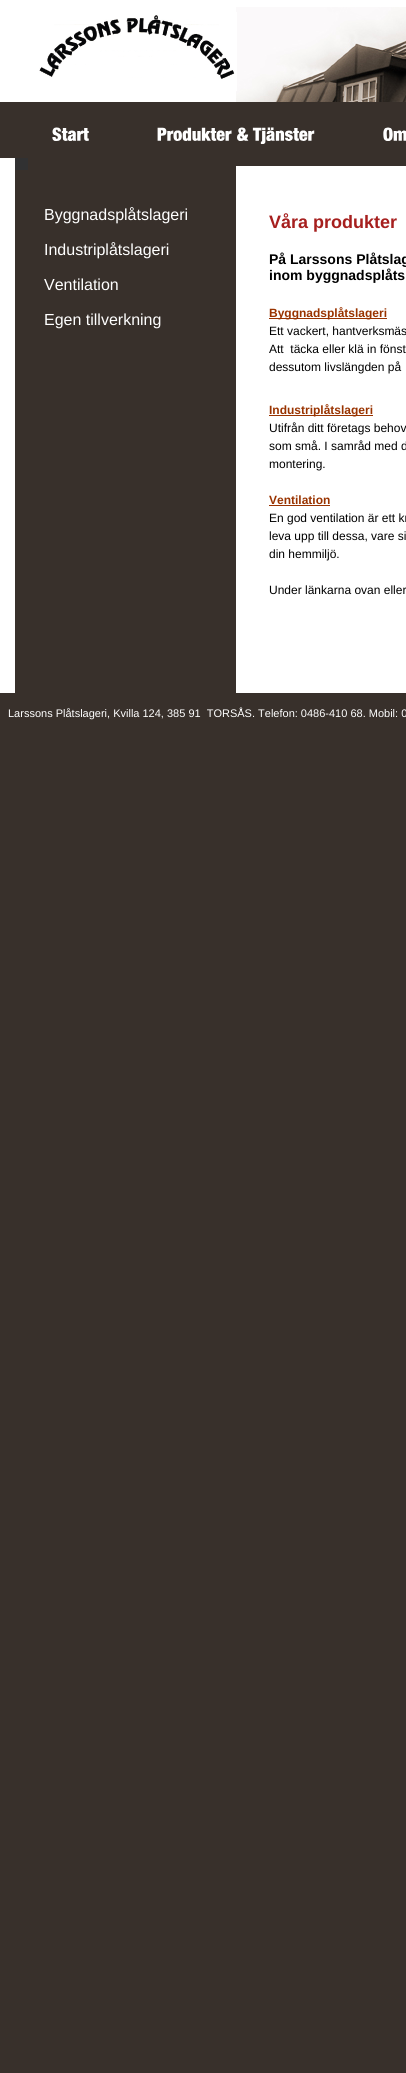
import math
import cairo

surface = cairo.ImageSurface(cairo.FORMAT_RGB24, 406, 2073)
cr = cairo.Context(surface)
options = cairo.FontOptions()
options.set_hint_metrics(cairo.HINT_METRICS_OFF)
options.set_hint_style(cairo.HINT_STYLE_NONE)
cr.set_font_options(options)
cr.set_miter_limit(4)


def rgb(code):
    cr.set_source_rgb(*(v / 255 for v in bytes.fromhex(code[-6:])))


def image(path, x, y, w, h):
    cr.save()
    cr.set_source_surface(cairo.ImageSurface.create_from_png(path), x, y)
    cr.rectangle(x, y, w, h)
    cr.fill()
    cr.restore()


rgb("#38302b")
cr.paint()
image("img/1.png", 0, 0, 406, 102)
image("img/2.png", 236, 7, 170, 95)
image("img/3.png", 39, 12, 198, 79)
image("img/4.png", 52, 127, 37, 14)
image("img/5.png", 157, 127, 75, 14)
image("img/6.png", 237, 127, 12, 14)
image("img/7.png", 252, 127, 63, 17)
image("img/8.png", 383, 127, 23, 14)
for x, y, w, h, color in [
    (0, 158, 406, 535, "#ffffff"),
    (15, 158, 221, 535, "#38302b"),
    (15, 158, 13, 12, "#313132"),
    (236, 158, 170, 8, "#38302b"),
    (269, 318, 118, 1, "#993300"),
    (269, 415, 104, 1, "#993300"),
    (269, 505, 61, 1, "#993300"),
]:
    rgb(color)
    cr.rectangle(x, y, w, h)
    cr.fill()
cr.select_font_face("Liberation Sans")
cr.set_font_size(16)
rgb("#ffffff")
for x, y, s in [
    (44, 220, "Byggnadsplåtslageri"),
    (44, 255, "Industriplåtslageri"),
    (44, 290, "Ventilation"),
    (44, 325, "Egen tillverkning"),
]:
    cr.move_to(x, y)
    cr.show_text(s)
cr.select_font_face("Liberation Sans", cairo.FONT_SLANT_NORMAL, cairo.FONT_WEIGHT_BOLD)
cr.set_font_size(18)
rgb("#a61f1e")
cr.move_to(269, 228)
cr.show_text("Våra produkter")
cr.set_font_size(14)
rgb("#000000")
cr.move_to(269, 264)
cr.show_text("På Larssons Plåtslag")
cr.move_to(269, 280)
cr.show_text("inom byggnadsplåts")
cr.set_font_size(12)
rgb("#993300")
cr.move_to(269, 317)
cr.show_text("Byggnadsplåtslageri")
cr.select_font_face("Liberation Sans")
rgb("#000000")
for x, y, s in [
    (269, 335, "Ett vackert, hantverksmäs"),
    (269, 353, "Att  täcka eller klä in fönst"),
    (269, 371, "dessutom livslängden på"),
]:
    cr.move_to(x, y)
    cr.show_text(s)
cr.select_font_face("Liberation Sans", cairo.FONT_SLANT_NORMAL, cairo.FONT_WEIGHT_BOLD)
rgb("#993300")
cr.move_to(269, 414)
cr.show_text("Industriplåtslageri")
cr.select_font_face("Liberation Sans")
rgb("#000000")
for x, y, s in [
    (269, 432, "Utifrån ditt företags behov"),
    (269, 450, "som små. I samråd med d"),
    (269, 468, "montering."),
]:
    cr.move_to(x, y)
    cr.show_text(s)
cr.select_font_face("Liberation Sans", cairo.FONT_SLANT_NORMAL, cairo.FONT_WEIGHT_BOLD)
rgb("#993300")
cr.move_to(269, 504)
cr.show_text("Ventilation")
cr.select_font_face("Liberation Sans")
rgb("#000000")
for x, y, s in [
    (269, 522, "En god ventilation är ett kr"),
    (269, 540, "leva upp till dessa, vare si"),
    (269, 558, "din hemmiljö."),
    (269, 594, "Under länkarna ovan eller"),
]:
    cr.move_to(x, y)
    cr.show_text(s)
cr.set_font_size(11)
rgb("#ffffff")
cr.move_to(8, 717)
cr.show_text("Larssons Plåtslageri, Kvilla 124, 385 91  TORSÅS. Telefon: 0486-410 68. Mobil: 0")
surface.write_to_png("page.png")
